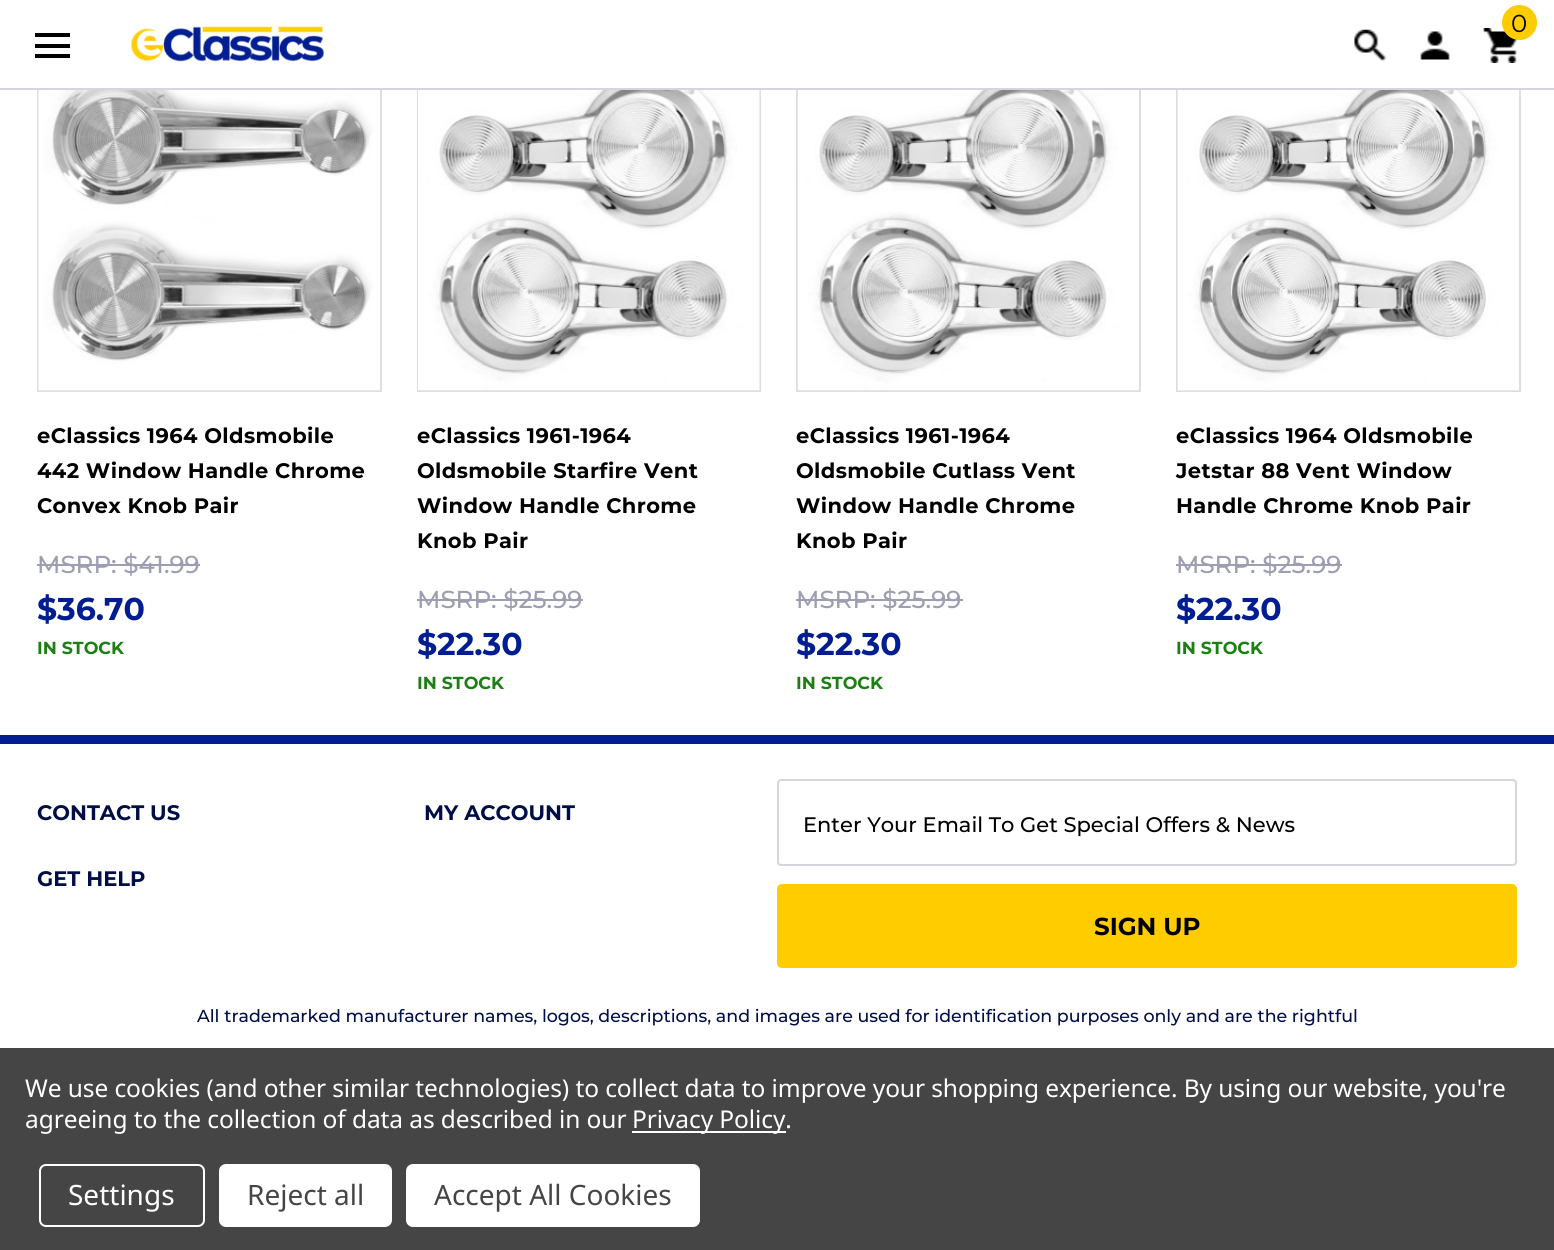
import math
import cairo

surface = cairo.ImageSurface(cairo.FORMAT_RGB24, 1554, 1250)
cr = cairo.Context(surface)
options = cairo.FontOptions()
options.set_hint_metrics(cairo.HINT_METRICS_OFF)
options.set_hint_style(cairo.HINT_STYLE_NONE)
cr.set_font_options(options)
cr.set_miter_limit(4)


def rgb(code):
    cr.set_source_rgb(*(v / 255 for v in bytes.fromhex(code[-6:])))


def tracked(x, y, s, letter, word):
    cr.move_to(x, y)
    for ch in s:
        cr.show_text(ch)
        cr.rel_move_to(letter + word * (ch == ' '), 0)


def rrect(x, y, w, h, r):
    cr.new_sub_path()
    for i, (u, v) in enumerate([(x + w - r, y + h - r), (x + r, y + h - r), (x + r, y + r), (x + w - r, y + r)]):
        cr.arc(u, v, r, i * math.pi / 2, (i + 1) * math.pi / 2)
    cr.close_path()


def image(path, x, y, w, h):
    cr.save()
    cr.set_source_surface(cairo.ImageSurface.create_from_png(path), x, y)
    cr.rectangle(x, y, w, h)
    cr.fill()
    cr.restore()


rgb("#ffffff")
cr.paint()
cr.rectangle(38, 48, 343, 343)
rgb("#dedede")
cr.stroke()
cr.rectangle(418, 48, 342, 343)
cr.stroke()
cr.rectangle(797, 48, 343, 343)
cr.stroke()
cr.rectangle(1177, 48, 343, 343)
cr.stroke()
rgb("#ffffff")
cr.rectangle(37, 47, 1484, 41)
cr.fill()
rgb("#d5d5e0")
cr.rectangle(0, 88, 1554, 2)
cr.fill()
image("img/1.png", 1483, 28, 35, 35)
rgb("#ffcc00")
cr.arc(1519.5, 22.5, 17.5, 0, 2 * math.pi)
cr.fill()
image("img/2.png", 1354, 29, 33, 33)
image("img/3.png", 1420, 31, 30, 29)
image("img/4.png", 131, 26, 193, 36)
for x, y, w, h, color in [
    (35, 44, 35, 4, "#000000"),
    (35, 33, 35, 4, "#000000"),
    (35, 54, 35, 4, "#000000"),
]:
    rgb(color)
    cr.rectangle(x, y, w, h)
    cr.fill()
image("img/5.png", 38, 90, 342, 301)
rgb("#9e9eb2")
cr.rectangle(37, 564, 163, 2)
cr.fill()
image("img/6.png", 418, 90, 342, 301)
cr.rectangle(417, 599, 166, 2)
cr.fill()
image("img/7.png", 797, 90, 342, 301)
cr.rectangle(796, 599, 167, 2)
cr.fill()
image("img/8.png", 1177, 90, 342, 301)
cr.rectangle(1176, 564, 166, 2)
cr.fill()
rgb("#001d92")
cr.rectangle(0, 735, 1554, 9)
cr.fill()
rrect(778, 780, 738, 85, 3)
rgb("#d5d5e0")
cr.stroke()
rgb("#ffcc00")
rrect(778, 885, 738, 82, 4)
cr.fill_preserve()
cr.stroke()
rgb("#454545")
cr.rectangle(0, 1048, 1554, 202)
cr.fill()
rgb("#ffffff")
cr.rectangle(632, 1131, 154, 2)
cr.fill()
rrect(40, 1165, 164, 61, 6)
cr.stroke()
rrect(219, 1164, 173, 63, 7)
cr.fill()
rrect(406, 1164, 294, 63, 7)
cr.fill()
cr.select_font_face("Montserrat")
cr.set_font_size(24.5)
rgb("#000000")
cr.move_to(1511, 32)
cr.show_text("0")
cr.select_font_face("Montserrat", cairo.FONT_SLANT_NORMAL, cairo.FONT_WEIGHT_BOLD)
cr.set_font_size(21)
for x, y, s in [
    (37, 443, "eClassics 1964 Oldsmobile"),
    (37, 478, "442 Window Handle Chrome"),
    (37, 513, "Convex Knob Pair"),
]:
    tracked(x, y, s, 0.4, 0)
cr.select_font_face("Montserrat Medium")
cr.set_font_size(24.5)
rgb("#9e9eb2")
cr.move_to(37, 573)
cr.show_text("MSRP: $41.99")
cr.select_font_face("Montserrat", cairo.FONT_SLANT_NORMAL, cairo.FONT_WEIGHT_BOLD)
cr.set_font_size(31.5)
rgb("#001d92")
cr.move_to(37, 620)
cr.show_text("$36.70")
cr.set_font_size(17.43)
rgb("#1b7f13")
cr.move_to(37, 654)
cr.show_text("IN STOCK")
cr.set_font_size(21)
rgb("#000000")
for x, y, s in [
    (417, 443, "eClassics 1961-1964"),
    (417, 478, "Oldsmobile Starfire Vent"),
    (417, 513, "Window Handle Chrome"),
    (417, 548, "Knob Pair"),
]:
    tracked(x, y, s, 0.4, 0)
cr.select_font_face("Montserrat Medium")
cr.set_font_size(24.5)
rgb("#9e9eb2")
cr.move_to(417, 608)
cr.show_text("MSRP: $25.99")
cr.select_font_face("Montserrat", cairo.FONT_SLANT_NORMAL, cairo.FONT_WEIGHT_BOLD)
cr.set_font_size(31.5)
rgb("#001d92")
cr.move_to(417, 655)
cr.show_text("$22.30")
cr.set_font_size(17.43)
rgb("#1b7f13")
cr.move_to(417, 689)
cr.show_text("IN STOCK")
cr.set_font_size(21)
rgb("#000000")
for x, y, s in [
    (796, 443, "eClassics 1961-1964"),
    (796, 478, "Oldsmobile Cutlass Vent"),
    (796, 513, "Window Handle Chrome"),
    (796, 548, "Knob Pair"),
]:
    tracked(x, y, s, 0.4, 0)
cr.select_font_face("Montserrat Medium")
cr.set_font_size(24.5)
rgb("#9e9eb2")
cr.move_to(796, 608)
cr.show_text("MSRP: $25.99")
cr.select_font_face("Montserrat", cairo.FONT_SLANT_NORMAL, cairo.FONT_WEIGHT_BOLD)
cr.set_font_size(31.5)
rgb("#001d92")
cr.move_to(796, 655)
cr.show_text("$22.30")
cr.set_font_size(17.43)
rgb("#1b7f13")
cr.move_to(796, 689)
cr.show_text("IN STOCK")
cr.set_font_size(21)
rgb("#000000")
for x, y, s in [
    (1176, 443, "eClassics 1964 Oldsmobile"),
    (1176, 478, "Jetstar 88 Vent Window"),
    (1176, 513, "Handle Chrome Knob Pair"),
]:
    tracked(x, y, s, 0.4, 0)
cr.select_font_face("Montserrat Medium")
cr.set_font_size(24.5)
rgb("#9e9eb2")
cr.move_to(1176, 573)
cr.show_text("MSRP: $25.99")
cr.select_font_face("Montserrat", cairo.FONT_SLANT_NORMAL, cairo.FONT_WEIGHT_BOLD)
cr.set_font_size(31.5)
rgb("#001d92")
cr.move_to(1176, 620)
cr.show_text("$22.30")
cr.set_font_size(17.43)
rgb("#1b7f13")
cr.move_to(1176, 654)
cr.show_text("IN STOCK")
cr.set_font_size(21)
rgb("#000e47")
for x, y, s in [
    (37, 820, "CONTACT US"),
    (424, 820, "MY ACCOUNT"),
    (37, 886, "GET HELP"),
]:
    cr.move_to(x, y)
    cr.show_text(s)
cr.select_font_face("Montserrat Medium")
rgb("#000000")
cr.move_to(803, 832)
cr.show_text("Enter Your Email To Get Special Offers & News")
cr.select_font_face("Montserrat", cairo.FONT_SLANT_NORMAL, cairo.FONT_WEIGHT_BOLD)
cr.set_font_size(24.5)
cr.move_to(1094, 935)
cr.show_text("SIGN UP")
cr.select_font_face("Montserrat Medium")
cr.set_font_size(17.43)
rgb("#000e47")
cr.move_to(197, 1022)
cr.show_text("All trademarked manufacturer names, logos, descriptions, and images are used for identification purposes only and are the rightful")
cr.select_font_face("Noto Sans")
cr.set_font_size(24.5)
rgb("#ffffff")
for x, y, s in [
    (25, 1097, "We use cookies (and other similar technologies) to collect data to improve your shopping experience. By using our website, you're"),
    (25, 1128, "agreeing to the collection of data as described in our"),
    (632, 1128, "Privacy Policy."),
]:
    tracked(x, y, s, -0.09, 0)
cr.set_font_size(28)
cr.move_to(68, 1205)
cr.show_text("Settings")
rgb("#454545")
cr.move_to(247, 1205)
cr.show_text("Reject all")
cr.move_to(434, 1205)
cr.show_text("Accept All Cookies")
surface.write_to_png("page.png")
